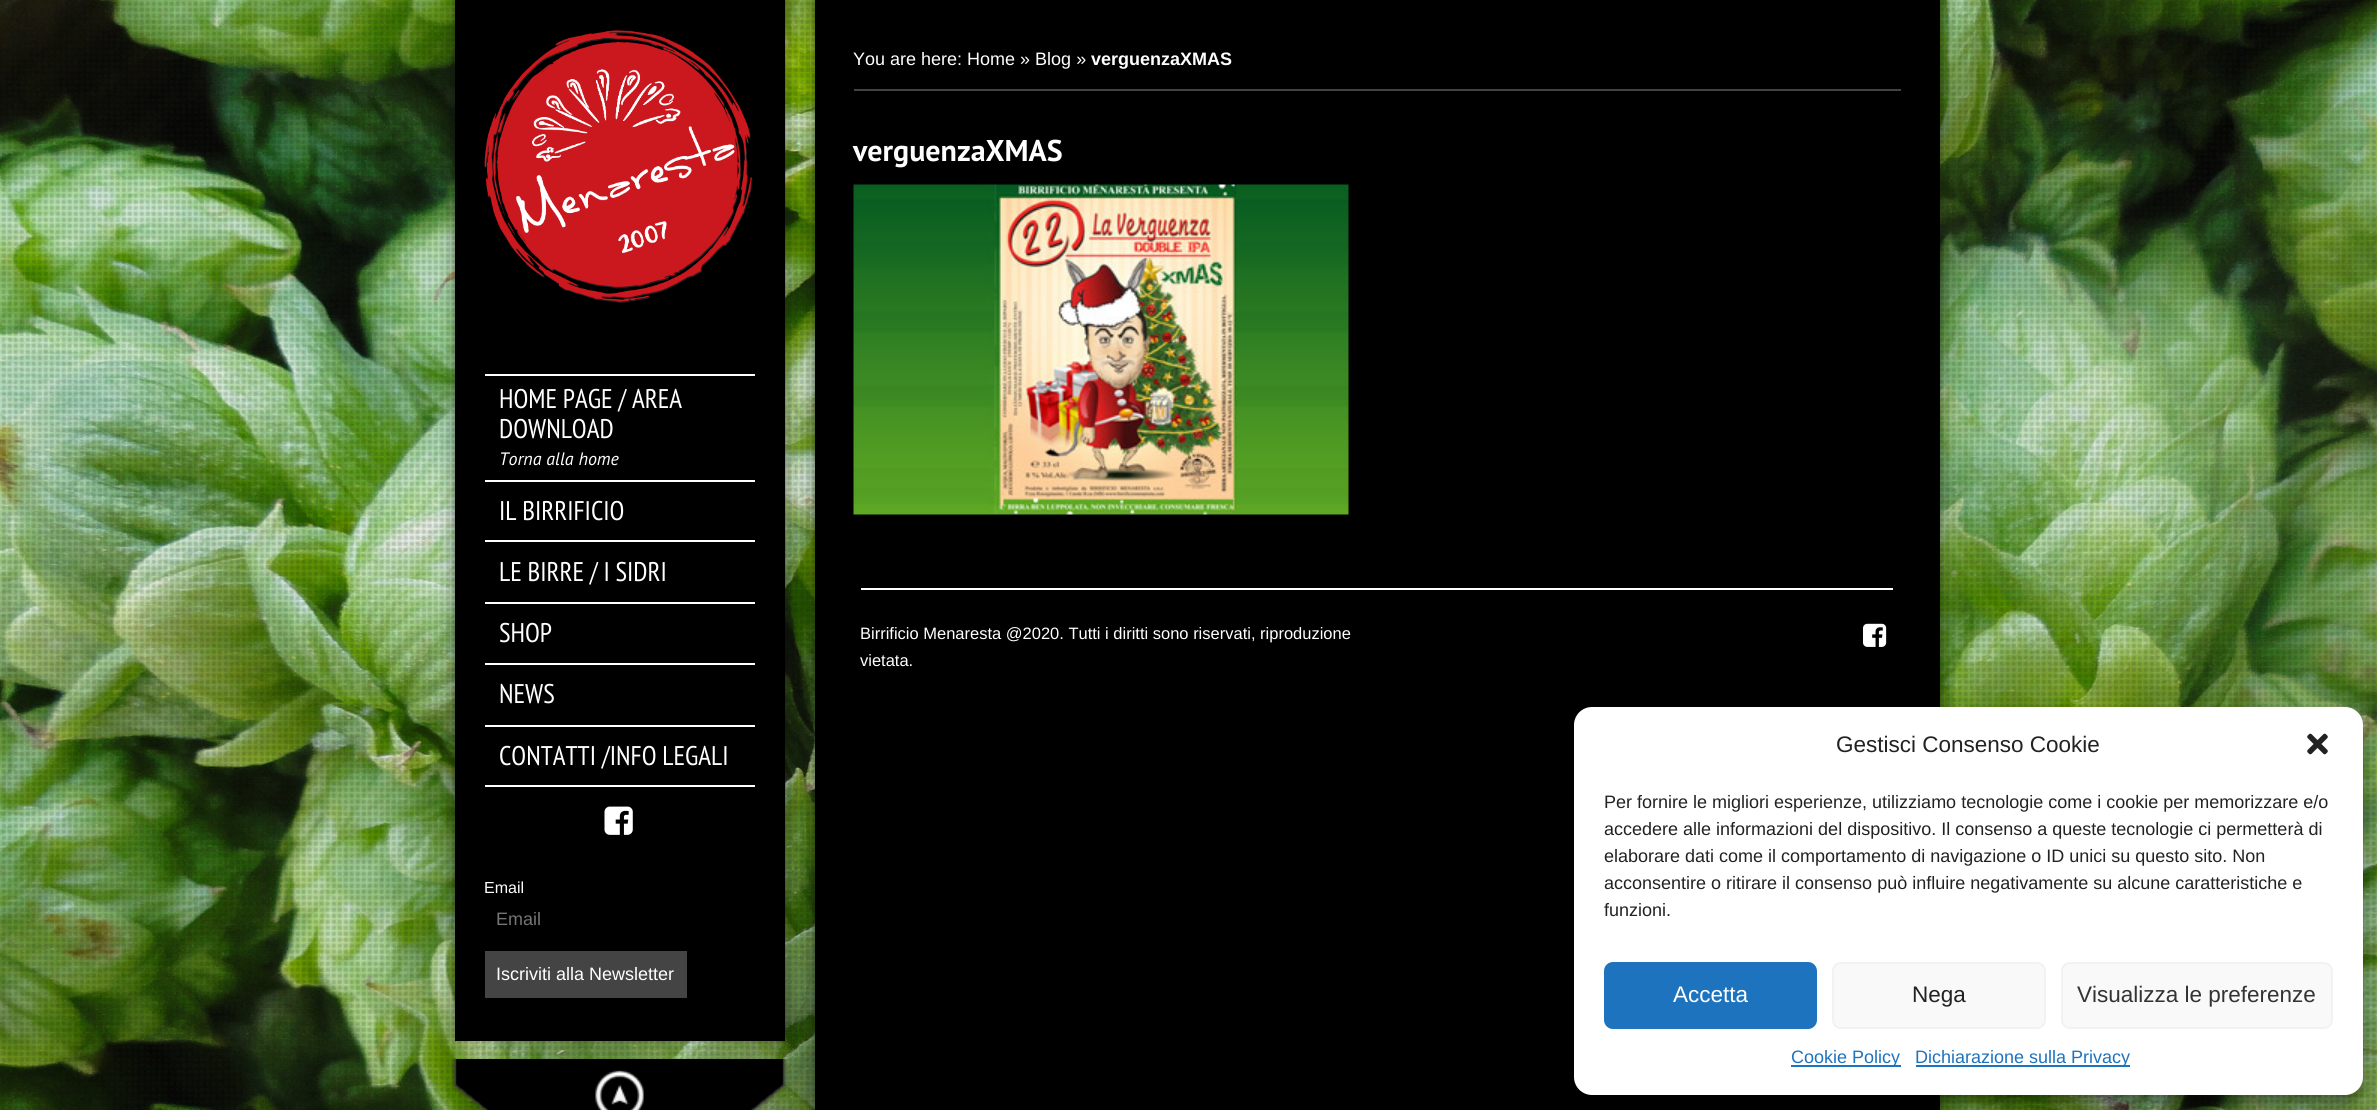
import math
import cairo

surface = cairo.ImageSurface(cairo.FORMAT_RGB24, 2377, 1110)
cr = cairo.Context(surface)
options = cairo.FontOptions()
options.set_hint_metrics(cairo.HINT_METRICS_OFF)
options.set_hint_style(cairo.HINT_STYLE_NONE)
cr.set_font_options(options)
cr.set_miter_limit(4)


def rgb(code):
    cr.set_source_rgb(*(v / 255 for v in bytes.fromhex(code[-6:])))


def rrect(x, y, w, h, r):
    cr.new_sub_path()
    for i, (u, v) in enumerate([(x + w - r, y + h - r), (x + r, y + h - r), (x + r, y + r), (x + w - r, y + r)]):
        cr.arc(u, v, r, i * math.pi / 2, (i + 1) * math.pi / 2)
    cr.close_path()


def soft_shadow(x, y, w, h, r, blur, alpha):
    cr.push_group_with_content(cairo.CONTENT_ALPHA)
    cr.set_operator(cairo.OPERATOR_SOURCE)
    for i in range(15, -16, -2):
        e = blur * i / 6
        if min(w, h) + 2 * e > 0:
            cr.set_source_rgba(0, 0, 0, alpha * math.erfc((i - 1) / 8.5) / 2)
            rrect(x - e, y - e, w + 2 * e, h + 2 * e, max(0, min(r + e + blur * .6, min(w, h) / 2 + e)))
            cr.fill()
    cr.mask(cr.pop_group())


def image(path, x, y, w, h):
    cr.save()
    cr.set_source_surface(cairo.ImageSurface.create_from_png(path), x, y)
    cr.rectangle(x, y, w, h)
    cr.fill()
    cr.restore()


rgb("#ffffff")
cr.paint()
image("img/1.png", 0, 0, 2377, 1110)
image("img/2.png", 0, 0, 2377, 1110)
rgb("#111111")
soft_shadow(455, -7, 330, 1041, 0, 7.5, 0.5)
rgb("#000000")
cr.rectangle(455, 0, 330, 1041)
cr.fill()
image("img/3.png", 484, 30, 269, 273)
for x, y, w, h, color in [
    (485, 374, 270, 2, "#ffffff"),
    (485, 480, 270, 2, "#ffffff"),
    (485, 540, 270, 2, "#ffffff"),
    (485, 602, 270, 2, "#ffffff"),
    (485, 663, 270, 2, "#ffffff"),
    (485, 725, 270, 2, "#ffffff"),
    (485, 785, 270, 2, "#ffffff"),
]:
    rgb(color)
    cr.rectangle(x, y, w, h)
    cr.fill()
image("img/4.png", 604, 806, 29, 29)
rgb("#444444")
cr.rectangle(485, 951, 202, 47)
cr.fill()
image("img/5.png", 451, 1059, 337, 51)
image("img/6.png", 595, 1070, 49, 40)
rgb("#111111")
soft_shadow(815, 0, 1125, 1110, 0, 7.5, 0.5)
rgb("#000000")
cr.rectangle(815, 0, 1125, 1110)
cr.fill()
rgb("#434343")
cr.rectangle(854, 89, 1047, 2)
cr.fill()
image("img/7.png", 853, 184, 496, 331)
rgb("#ffffff")
cr.rectangle(861, 588, 1032, 2)
cr.fill()
image("img/8.png", 1863, 623, 24, 24)
rgb("#000000")
soft_shadow(1574, 716, 789, 388, 18, 4.5, 0.23)
soft_shadow(1574, 722, 789, 388, 18, 15, 0.19)
rgb("#ffffff")
rrect(1574, 707, 789, 388, 18)
cr.fill()
image("img/9.png", 2307, 733, 21, 22)
rgb("#1e73be")
rrect(1605, 963, 211, 65, 8)
cr.fill_preserve()
cr.stroke()
rgb("#f9f9f9")
rrect(1833, 963, 212, 65, 8)
cr.fill_preserve()
rgb("#f2f2f2")
cr.stroke()
rgb("#f9f9f9")
rrect(2062, 963, 270, 65, 8)
cr.fill_preserve()
rgb("#f2f2f2")
cr.stroke()
rgb("#1e73be")
cr.rectangle(1791, 1065, 110, 2)
cr.fill()
cr.rectangle(1916, 1065, 214, 2)
cr.fill()
cr.select_font_face("PT Sans Narrow")
cr.set_font_size(27)
rgb("#ffffff")
cr.move_to(499, 408)
cr.show_text("HOME PAGE / AREA")
cr.move_to(499, 438)
cr.show_text("DOWNLOAD")
cr.select_font_face("PT Sans", cairo.FONT_SLANT_ITALIC)
cr.set_font_size(18)
cr.move_to(499, 465)
cr.show_text("Torna alla home")
cr.select_font_face("PT Sans Narrow")
cr.set_font_size(27)
for x, y, s in [
    (499, 520, "IL BIRRIFICIO"),
    (499, 581, "LE BIRRE / I SIDRI"),
    (499, 642, "SHOP"),
    (499, 703, "NEWS"),
    (499, 765, "CONTATTI /INFO LEGALI"),
]:
    cr.move_to(x, y)
    cr.show_text(s)
cr.select_font_face("Liberation Sans")
cr.set_font_size(16)
cr.move_to(484, 893)
cr.show_text("Email")
cr.set_font_size(18)
rgb("#757575")
cr.move_to(496, 925)
cr.show_text("Email")
rgb("#ffffff")
cr.move_to(496, 980)
cr.show_text("Iscriviti alla Newsletter")
cr.move_to(853, 65)
cr.show_text("You are here: Home » Blog »")
cr.select_font_face("Liberation Sans", cairo.FONT_SLANT_NORMAL, cairo.FONT_WEIGHT_BOLD)
cr.move_to(1091, 65)
cr.show_text("verguenzaXMAS")
cr.select_font_face("PT Sans", cairo.FONT_SLANT_NORMAL, cairo.FONT_WEIGHT_BOLD)
cr.set_font_size(30)
cr.move_to(853, 161)
cr.show_text("verguenzaXMAS")
cr.select_font_face("Liberation Sans")
cr.set_font_size(16.5)
cr.move_to(860, 639)
cr.show_text("Birrificio Menaresta @2020. Tutti i diritti sono riservati, riproduzione")
cr.move_to(860, 666)
cr.show_text("vietata.")
cr.set_font_size(22.5)
rgb("#222222")
cr.move_to(1836, 752)
cr.show_text("Gestisci Consenso Cookie")
cr.set_font_size(18)
for x, y, s in [
    (1604, 808, "Per fornire le migliori esperienze, utilizziamo tecnologie come i cookie per memorizzare e/o"),
    (1604, 835, "accedere alle informazioni del dispositivo. Il consenso a queste tecnologie ci permetterà di"),
    (1604, 862, "elaborare dati come il comportamento di navigazione o ID unici su questo sito. Non"),
    (1604, 889, "acconsentire o ritirare il consenso può influire negativamente su alcune caratteristiche e"),
    (1604, 916, "funzioni."),
]:
    cr.move_to(x, y)
    cr.show_text(s)
cr.set_font_size(22.5)
rgb("#ffffff")
cr.move_to(1673, 1002)
cr.show_text("Accetta")
rgb("#222222")
cr.move_to(1912, 1002)
cr.show_text("Nega")
rgb("#333333")
cr.move_to(2077, 1002)
cr.show_text("Visualizza le preferenze")
cr.set_font_size(18)
rgb("#1e73be")
cr.move_to(1791, 1063)
cr.show_text("Cookie Policy")
cr.move_to(1915, 1063)
cr.show_text("Dichiarazione sulla Privacy")
surface.write_to_png("page.png")
